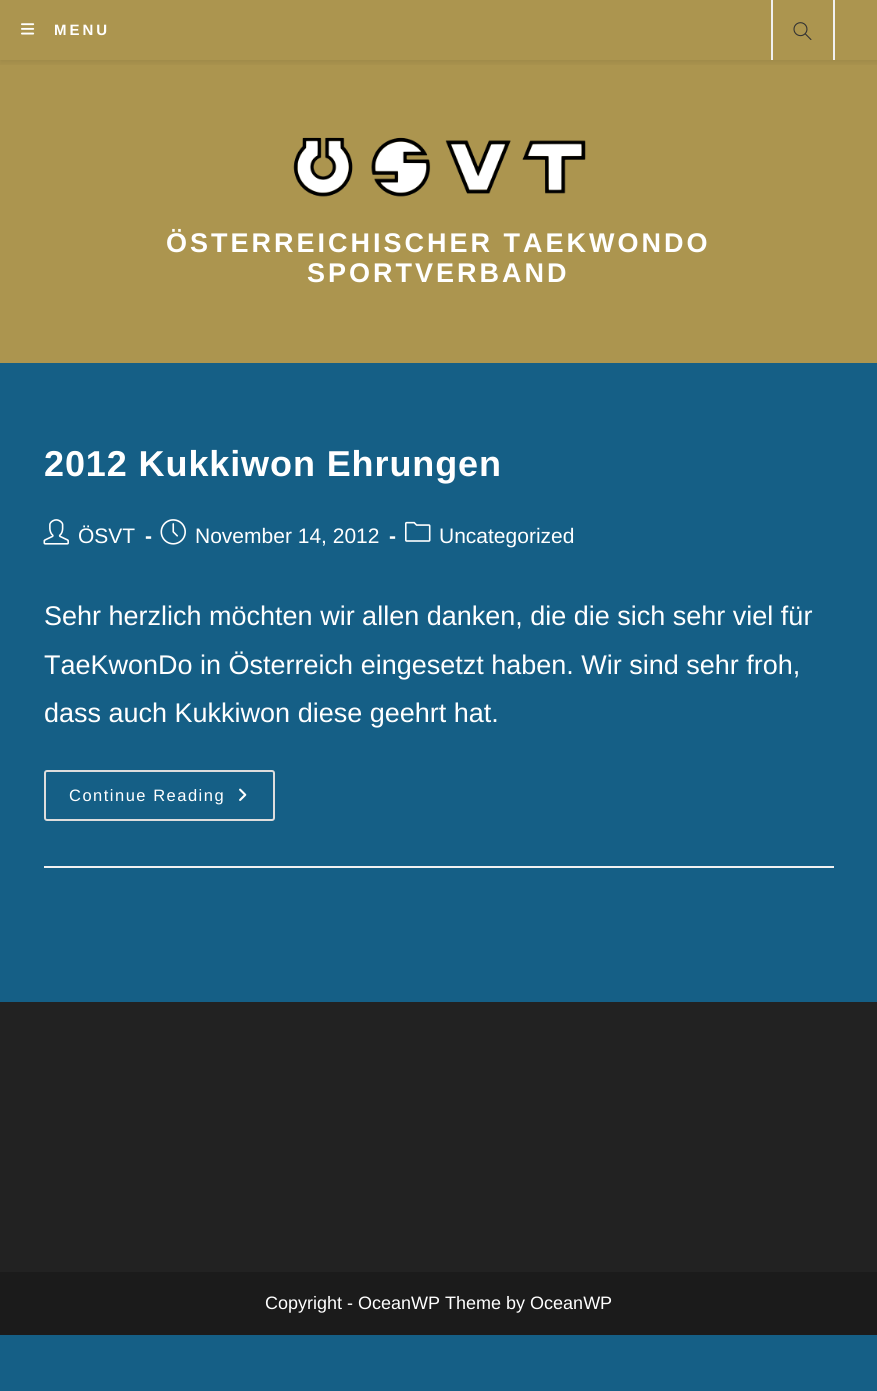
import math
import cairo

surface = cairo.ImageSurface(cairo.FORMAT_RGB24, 877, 1391)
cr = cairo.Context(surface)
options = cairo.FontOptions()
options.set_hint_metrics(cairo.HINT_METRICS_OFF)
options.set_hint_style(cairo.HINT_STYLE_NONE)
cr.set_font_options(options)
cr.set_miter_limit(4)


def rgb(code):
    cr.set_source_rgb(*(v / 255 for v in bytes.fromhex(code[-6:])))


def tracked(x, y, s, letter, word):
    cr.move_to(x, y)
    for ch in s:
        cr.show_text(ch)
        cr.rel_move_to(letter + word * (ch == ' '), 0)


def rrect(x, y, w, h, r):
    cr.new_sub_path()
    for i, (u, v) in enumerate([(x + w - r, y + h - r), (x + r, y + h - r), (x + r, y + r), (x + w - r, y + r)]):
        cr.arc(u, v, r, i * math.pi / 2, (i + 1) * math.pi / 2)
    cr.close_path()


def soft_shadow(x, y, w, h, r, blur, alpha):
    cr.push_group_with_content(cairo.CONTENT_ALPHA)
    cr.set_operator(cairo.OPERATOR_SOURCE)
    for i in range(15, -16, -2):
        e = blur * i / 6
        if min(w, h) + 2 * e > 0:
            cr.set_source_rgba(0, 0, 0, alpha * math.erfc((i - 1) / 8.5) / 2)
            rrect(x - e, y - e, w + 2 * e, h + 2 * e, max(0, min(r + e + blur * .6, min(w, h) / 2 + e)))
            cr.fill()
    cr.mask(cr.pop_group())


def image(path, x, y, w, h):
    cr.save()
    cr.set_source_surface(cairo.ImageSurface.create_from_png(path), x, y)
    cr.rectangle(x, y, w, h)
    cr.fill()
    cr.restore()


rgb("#155f86")
cr.paint()
rgb("#ac954f")
cr.rectangle(0, 0, 877, 363)
cr.fill()
cr.save()
cr.rectangle(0, 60, 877, 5)
cr.clip()
rgb("#000000")
soft_shadow(0, 2, 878, 60, 0, 4, 0.1)
cr.restore()
image("img/1.png", 21, 23, 14, 12)
rgb("#f1f1f1")
cr.rectangle(833, 0, 2, 60)
cr.fill()
cr.rectangle(771, 0, 2, 60)
cr.fill()
image("img/2.png", 793, 22, 19, 18)
image("img/3.png", 293, 137, 293, 60)
cr.rectangle(44, 866, 790, 2)
cr.fill()
image("img/4.png", 43, 519, 26, 26)
image("img/5.png", 160, 519, 26, 26)
image("img/6.png", 405, 521, 26, 21)
rrect(45, 771, 229, 49, 2)
rgb("#dddddd")
cr.stroke()
image("img/7.png", 239, 788, 8, 13)
rgb("#222222")
cr.rectangle(0, 1002, 877, 270)
cr.fill()
rgb("#1b1b1b")
cr.rectangle(0, 1272, 877, 63)
cr.fill()
cr.select_font_face("Liberation Sans", cairo.FONT_SLANT_NORMAL, cairo.FONT_WEIGHT_BOLD)
cr.set_font_size(15)
rgb("#ffffff")
tracked(54, 35, "MENU", 3, 0)
cr.set_font_size(27)
tracked(166, 252, "ÖSTERREICHISCHER TAEKWONDO", 3, 0)
tracked(307, 282, "SPORTVERBAND", 3, 0)
cr.set_font_size(36)
tracked(44, 476, "2012 Kukkiwon Ehrungen", 0.9, 0)
cr.select_font_face("Liberation Sans")
cr.set_font_size(21)
cr.move_to(78, 543)
cr.show_text("ÖSVT")
cr.select_font_face("Liberation Sans", cairo.FONT_SLANT_NORMAL, cairo.FONT_WEIGHT_BOLD)
cr.move_to(145, 543)
cr.show_text("-")
cr.select_font_face("Liberation Sans")
cr.move_to(195, 543)
cr.show_text("November 14, 2012")
cr.select_font_face("Liberation Sans", cairo.FONT_SLANT_NORMAL, cairo.FONT_WEIGHT_BOLD)
cr.move_to(389, 543)
cr.show_text("-")
cr.select_font_face("Liberation Sans")
cr.move_to(439, 543)
cr.show_text("Uncategorized")
cr.set_font_size(27)
for x, y, s in [
    (44, 625, "Sehr herzlich möchten wir allen danken, die die sich sehr viel für"),
    (44, 674, "TaeKwonDo in Österreich eingesetzt haben. Wir sind sehr froh,"),
    (44, 722, "dass auch Kukkiwon diese geehrt hat."),
]:
    cr.move_to(x, y)
    cr.show_text(s)
cr.set_font_size(16.5)
tracked(69, 801, "Continue Reading", 1.5, 0)
cr.set_font_size(18)
cr.move_to(265, 1309)
cr.show_text("Copyright - OceanWP Theme by OceanWP")
surface.write_to_png("page.png")
